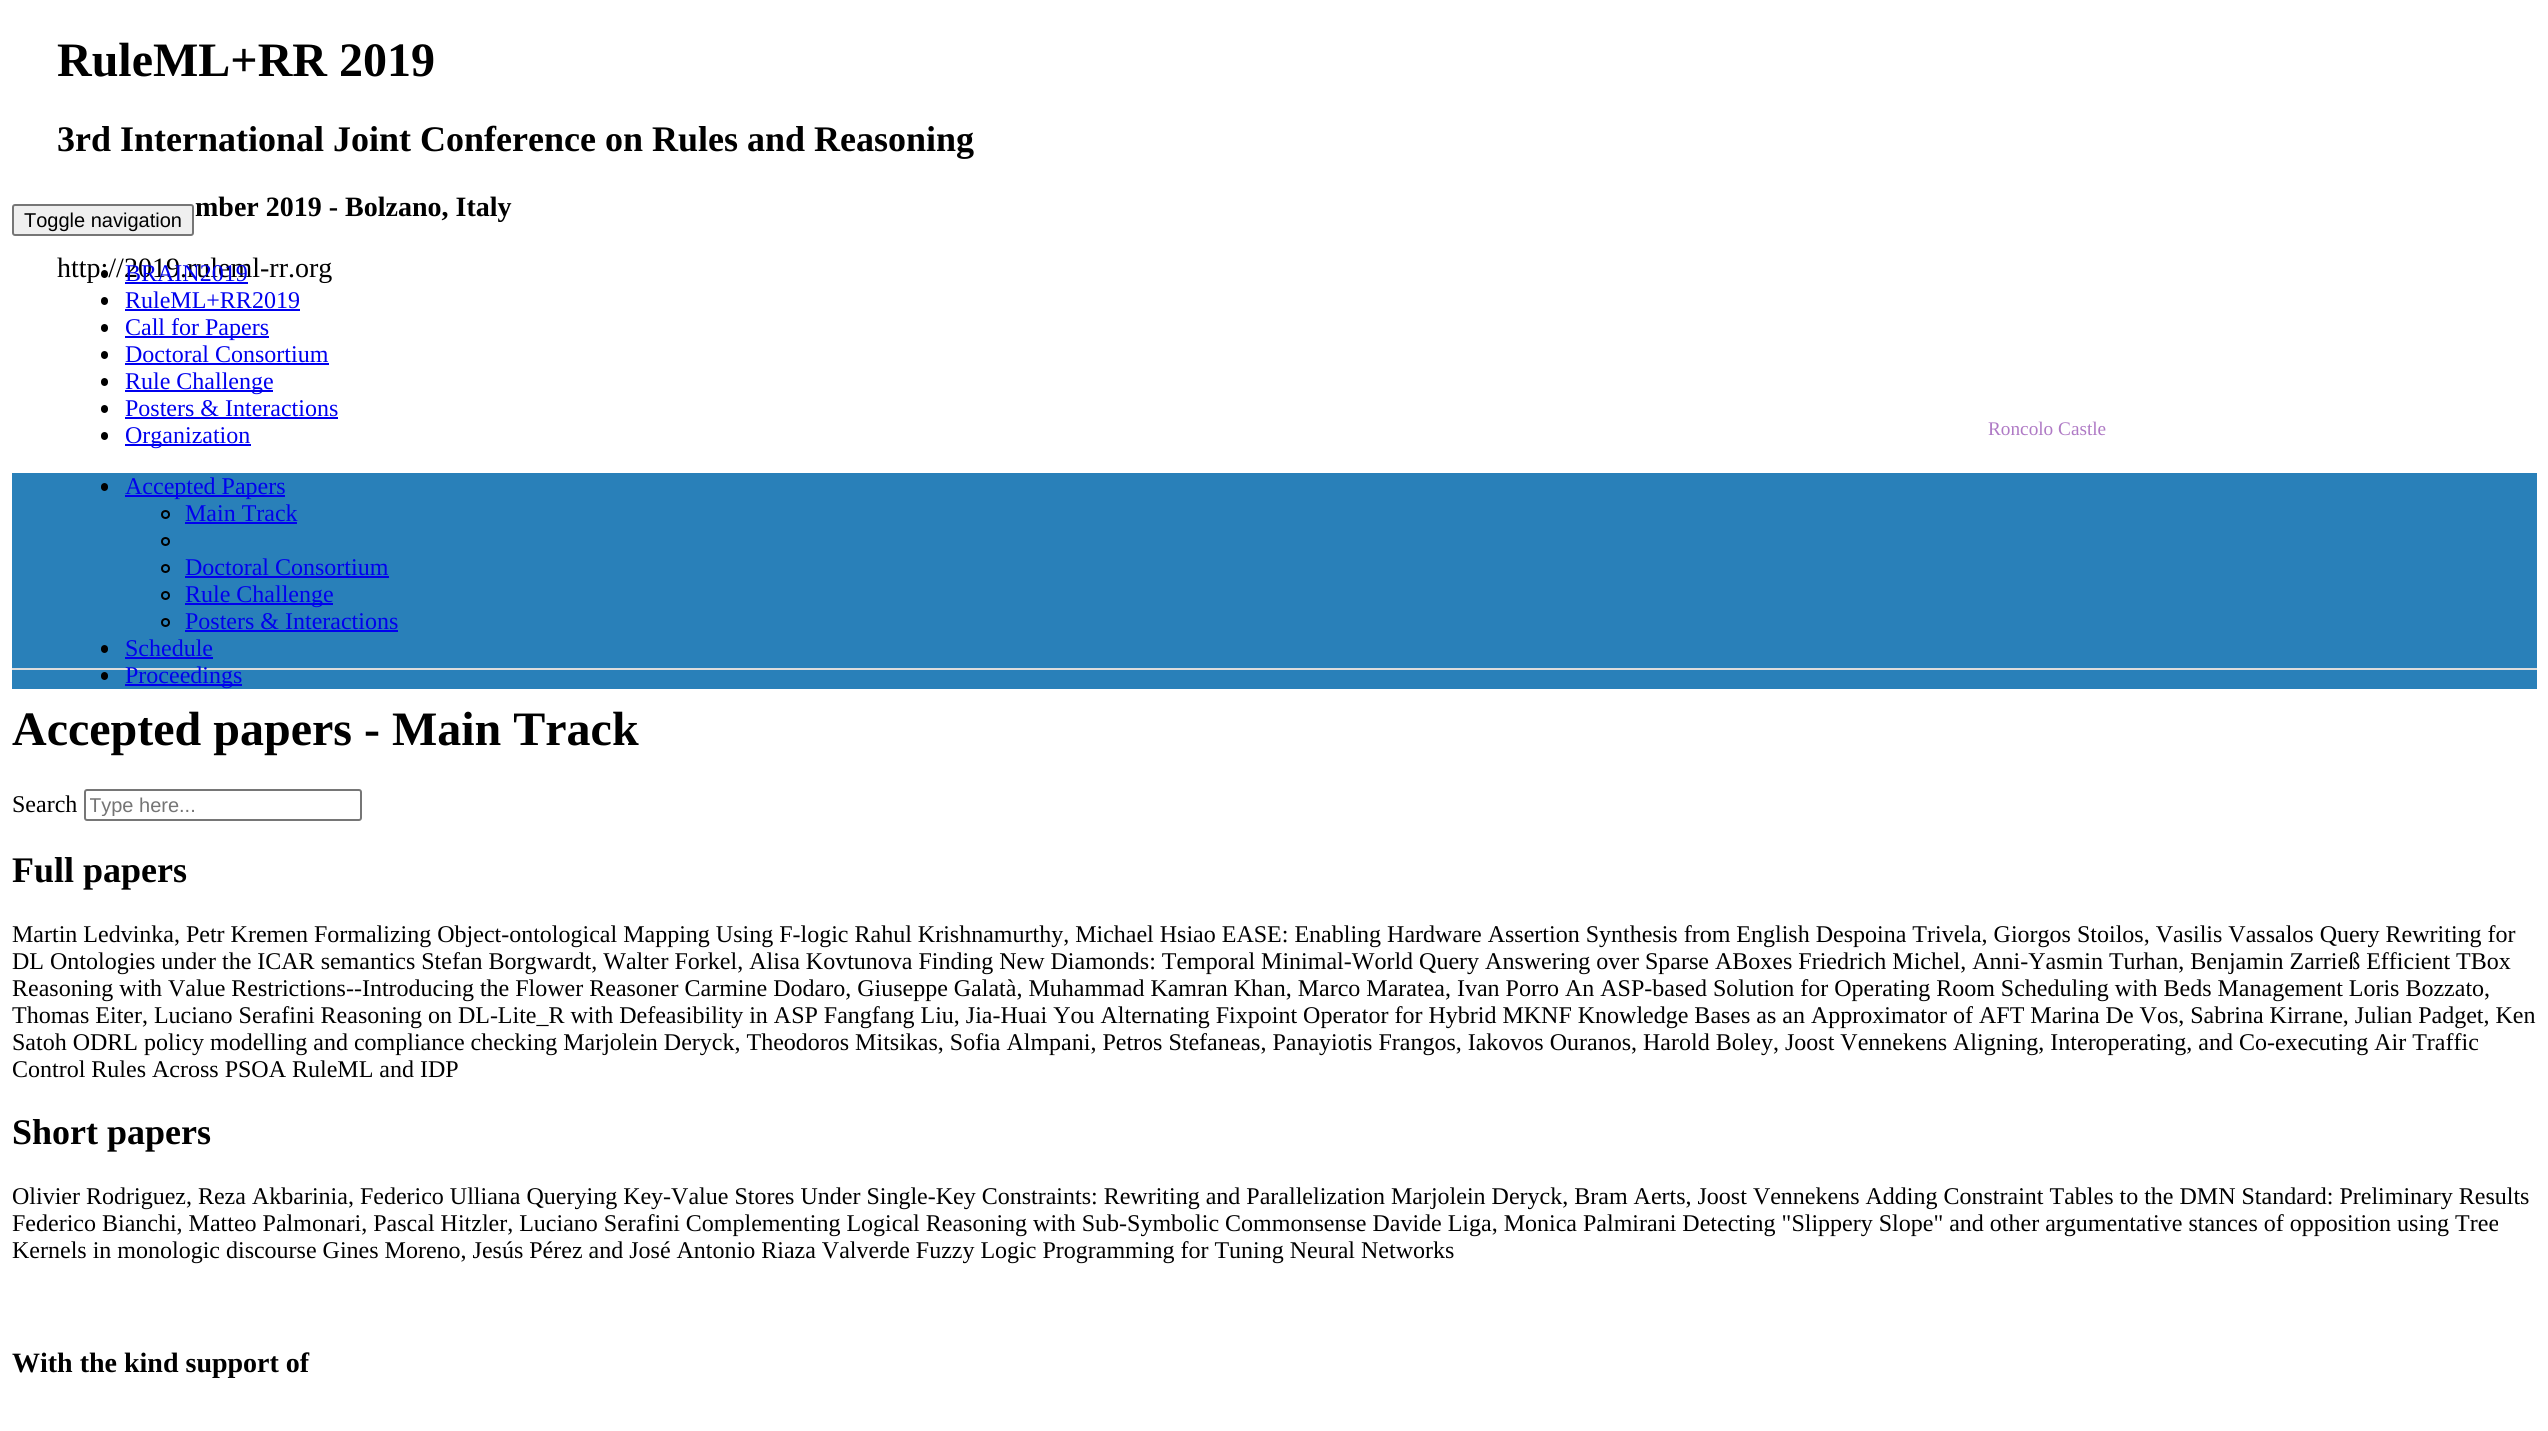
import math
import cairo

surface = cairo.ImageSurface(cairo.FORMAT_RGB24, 2548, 1431)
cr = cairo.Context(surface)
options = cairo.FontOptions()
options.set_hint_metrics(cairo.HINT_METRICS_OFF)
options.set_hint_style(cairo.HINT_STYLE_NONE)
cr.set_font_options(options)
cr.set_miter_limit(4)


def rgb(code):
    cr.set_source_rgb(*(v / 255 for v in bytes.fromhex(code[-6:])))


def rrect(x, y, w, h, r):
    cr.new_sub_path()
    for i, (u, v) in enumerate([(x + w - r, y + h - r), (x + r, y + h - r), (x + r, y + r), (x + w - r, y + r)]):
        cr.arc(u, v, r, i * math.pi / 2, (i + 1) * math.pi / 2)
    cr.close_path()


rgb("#ffffff")
cr.paint()
rgb("#efefef")
rrect(13, 205, 180, 30, 2)
cr.fill_preserve()
rgb("#767676")
cr.stroke()
rgb("#000000")
rrect(101, 270, 7, 8, 3.5)
cr.fill()
rrect(101, 297, 7, 8, 3.5)
cr.fill()
rgb("#0000ee")
cr.rectangle(125, 309, 175, 2)
cr.fill()
rgb("#000000")
rrect(101, 324, 7, 8, 3.5)
cr.fill()
rgb("#0000ee")
cr.rectangle(125, 336, 144, 2)
cr.fill()
rgb("#000000")
rrect(101, 351, 7, 8, 3.5)
cr.fill()
rgb("#0000ee")
cr.rectangle(125, 363, 204, 2)
cr.fill()
rgb("#000000")
rrect(101, 378, 7, 8, 3.5)
cr.fill()
rgb("#0000ee")
cr.rectangle(125, 390, 148, 2)
cr.fill()
rgb("#000000")
rrect(101, 405, 7, 8, 3.5)
cr.fill()
rgb("#0000ee")
cr.rectangle(125, 417, 213, 2)
cr.fill()
rgb("#000000")
rrect(101, 432, 7, 8, 3.5)
cr.fill()
rgb("#0000ee")
cr.rectangle(125, 444, 126, 2)
cr.fill()
rgb("#2980b9")
cr.rectangle(12, 473, 2525, 216)
cr.fill()
rgb("#000000")
rrect(101, 483, 7, 8, 3.5)
cr.fill()
rgb("#0000ee")
cr.rectangle(125, 495, 160, 2)
cr.fill()
cr.arc(165.5, 514.5, 3.5, 0, 2 * math.pi)
rgb("#000000")
cr.stroke()
rgb("#0000ee")
cr.rectangle(185, 522, 112, 2)
cr.fill()
cr.arc(165.5, 541.5, 3.5, 0, 2 * math.pi)
rgb("#000000")
cr.stroke()
cr.arc(165.5, 568.5, 3.5, 0, 2 * math.pi)
cr.stroke()
rgb("#0000ee")
cr.rectangle(185, 576, 204, 2)
cr.fill()
cr.arc(165.5, 595.5, 3.5, 0, 2 * math.pi)
rgb("#000000")
cr.stroke()
rgb("#0000ee")
cr.rectangle(185, 603, 148, 2)
cr.fill()
cr.arc(165.5, 622.5, 3.5, 0, 2 * math.pi)
rgb("#000000")
cr.stroke()
rgb("#0000ee")
cr.rectangle(185, 630, 213, 2)
cr.fill()
rgb("#000000")
rrect(101, 645, 7, 8, 3.5)
cr.fill()
rgb("#0000ee")
cr.rectangle(125, 657, 88, 2)
cr.fill()
rgb("#000000")
rrect(101, 672, 7, 8, 3.5)
cr.fill()
rgb("#0000ee")
cr.rectangle(125, 684, 117, 2)
cr.fill()
rgb("#dddddd")
cr.rectangle(12, 668, 2525, 2)
cr.fill()
rrect(85, 790, 276, 30, 2)
rgb("#767676")
cr.stroke()
cr.select_font_face("Liberation Serif", cairo.FONT_SLANT_NORMAL, cairo.FONT_WEIGHT_BOLD)
cr.set_font_size(48)
rgb("#000000")
cr.move_to(57, 76)
cr.show_text("RuleML+RR 2019")
cr.set_font_size(36)
cr.move_to(57, 151)
cr.show_text("3rd International Joint Conference on Rules and Reasoning")
cr.set_font_size(28)
cr.move_to(195, 216)
cr.show_text("mber 2019 - Bolzano, Italy")
cr.select_font_face("Liberation Serif")
cr.move_to(57, 277)
cr.show_text("http://2019.ruleml-rr.org")
cr.set_font_size(19.25)
rgb("#af7ac5")
cr.move_to(1988, 435)
cr.show_text("Roncolo Castle")
cr.select_font_face("Liberation Sans")
cr.set_font_size(20)
rgb("#000000")
cr.move_to(24, 227)
cr.show_text("Toggle navigation")
cr.select_font_face("Liberation Serif")
cr.set_font_size(24)
rgb("#0000ee")
cr.move_to(125, 281)
cr.show_text("BRAIN2019")
cr.rectangle(125, 282, 123, 2)
cr.fill()
for x, y, s in [
    (125, 308, "RuleML+RR2019"),
    (125, 335, "Call for Papers"),
    (125, 362, "Doctoral Consortium"),
    (125, 389, "Rule Challenge"),
    (125, 416, "Posters & Interactions"),
    (125, 443, "Organization"),
    (125, 494, "Accepted Papers"),
    (185, 521, "Main Track"),
    (185, 575, "Doctoral Consortium"),
    (185, 602, "Rule Challenge"),
    (185, 629, "Posters & Interactions"),
    (125, 656, "Schedule"),
    (125, 683, "Proceedings"),
]:
    cr.move_to(x, y)
    cr.show_text(s)
cr.select_font_face("Liberation Serif", cairo.FONT_SLANT_NORMAL, cairo.FONT_WEIGHT_BOLD)
cr.set_font_size(48)
rgb("#000000")
cr.move_to(12, 745)
cr.show_text("Accepted papers - Main Track")
cr.select_font_face("Liberation Serif")
cr.set_font_size(24)
cr.move_to(12, 812)
cr.show_text("Search")
cr.save()
cr.rectangle(90, 794, 266, 22)
cr.clip()
cr.select_font_face("Liberation Sans")
cr.set_font_size(20)
rgb("#757575")
cr.move_to(89, 812)
cr.show_text("Type here...")
cr.restore()
cr.select_font_face("Liberation Serif", cairo.FONT_SLANT_NORMAL, cairo.FONT_WEIGHT_BOLD)
cr.set_font_size(36)
cr.move_to(12, 882)
cr.show_text("Full papers")
cr.select_font_face("Liberation Serif")
cr.set_font_size(24)
for x, y, s in [
    (12, 942, "Martin Ledvinka, Petr Kremen Formalizing Object-ontological Mapping Using F-logic Rahul Krishnamurthy, Michael Hsiao EASE: Enabling Hardware Assertion Synthesis from English Despoina Trivela, Giorgos Stoilos, Vasilis Vassalos Query Rewriting for"),
    (12, 969, "DL Ontologies under the ICAR semantics Stefan Borgwardt, Walter Forkel, Alisa Kovtunova Finding New Diamonds: Temporal Minimal-World Query Answering over Sparse ABoxes Friedrich Michel, Anni-Yasmin Turhan, Benjamin Zarrieß Efficient TBox"),
    (12, 996, "Reasoning with Value Restrictions--Introducing the Flower Reasoner Carmine Dodaro, Giuseppe Galatà, Muhammad Kamran Khan, Marco Maratea, Ivan Porro An ASP-based Solution for Operating Room Scheduling with Beds Management Loris Bozzato,"),
    (12, 1023, "Thomas Eiter, Luciano Serafini Reasoning on DL-Lite_R with Defeasibility in ASP Fangfang Liu, Jia-Huai You Alternating Fixpoint Operator for Hybrid MKNF Knowledge Bases as an Approximator of AFT Marina De Vos, Sabrina Kirrane, Julian Padget, Ken"),
    (12, 1050, "Satoh ODRL policy modelling and compliance checking Marjolein Deryck, Theodoros Mitsikas, Sofia Almpani, Petros Stefaneas, Panayiotis Frangos, Iakovos Ouranos, Harold Boley, Joost Vennekens Aligning, Interoperating, and Co-executing Air Traffic"),
    (12, 1077, "Control Rules Across PSOA RuleML and IDP"),
]:
    cr.move_to(x, y)
    cr.show_text(s)
cr.select_font_face("Liberation Serif", cairo.FONT_SLANT_NORMAL, cairo.FONT_WEIGHT_BOLD)
cr.set_font_size(36)
cr.move_to(12, 1144)
cr.show_text("Short papers")
cr.select_font_face("Liberation Serif")
cr.set_font_size(24)
for x, y, s in [
    (12, 1204, "Olivier Rodriguez, Reza Akbarinia, Federico Ulliana Querying Key-Value Stores Under Single-Key Constraints: Rewriting and Parallelization Marjolein Deryck, Bram Aerts, Joost Vennekens Adding Constraint Tables to the DMN Standard: Preliminary Results"),
    (12, 1231, "Federico Bianchi, Matteo Palmonari, Pascal Hitzler, Luciano Serafini Complementing Logical Reasoning with Sub-Symbolic Commonsense Davide Liga, Monica Palmirani Detecting \"Slippery Slope\" and other argumentative stances of opposition using Tree"),
    (12, 1258, "Kernels in monologic discourse Gines Moreno, Jesús Pérez and José Antonio Riaza Valverde Fuzzy Logic Programming for Tuning Neural Networks"),
]:
    cr.move_to(x, y)
    cr.show_text(s)
cr.select_font_face("Liberation Serif", cairo.FONT_SLANT_NORMAL, cairo.FONT_WEIGHT_BOLD)
cr.set_font_size(28)
cr.move_to(12, 1372)
cr.show_text("With the kind support of")
surface.write_to_png("page.png")
